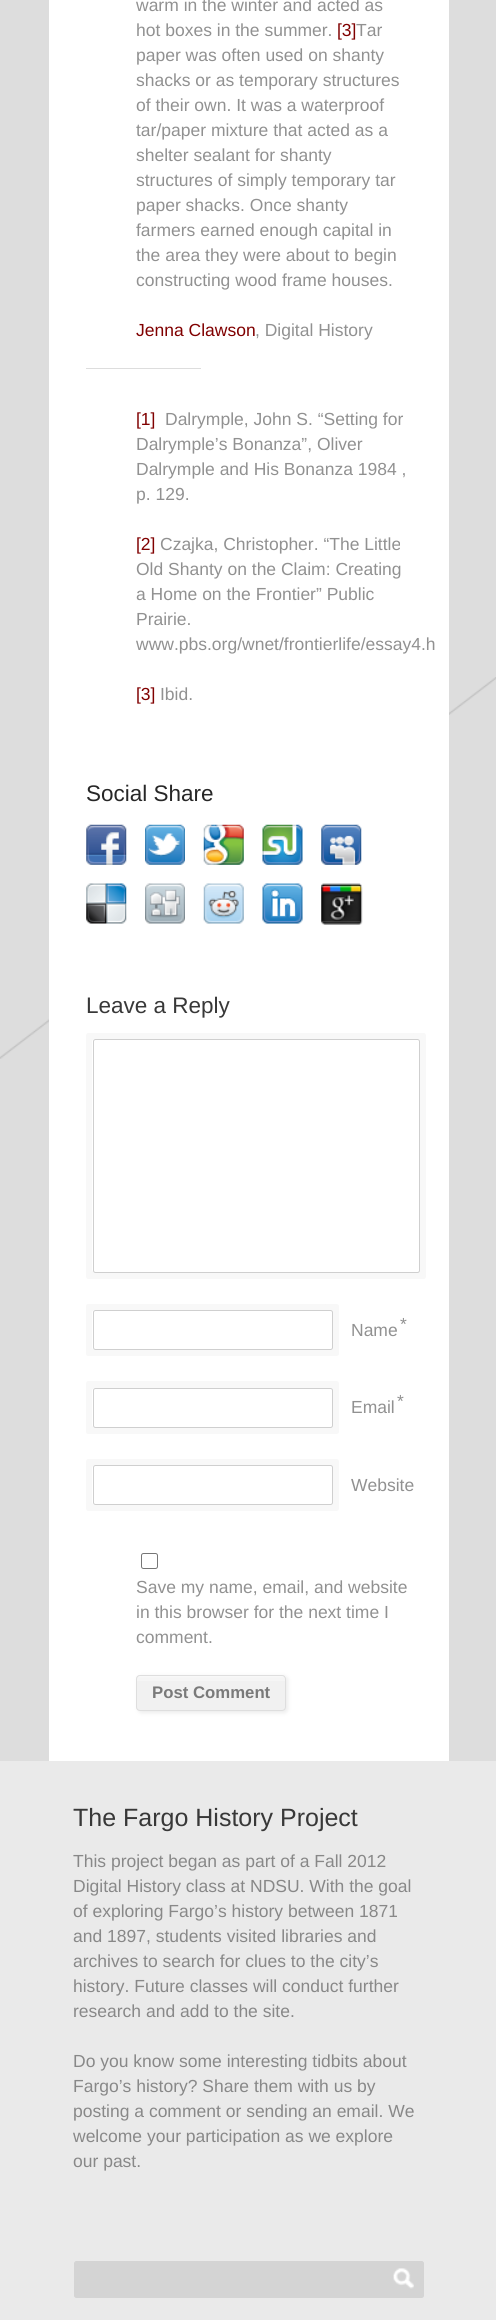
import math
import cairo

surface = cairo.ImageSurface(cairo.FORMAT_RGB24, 496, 2320)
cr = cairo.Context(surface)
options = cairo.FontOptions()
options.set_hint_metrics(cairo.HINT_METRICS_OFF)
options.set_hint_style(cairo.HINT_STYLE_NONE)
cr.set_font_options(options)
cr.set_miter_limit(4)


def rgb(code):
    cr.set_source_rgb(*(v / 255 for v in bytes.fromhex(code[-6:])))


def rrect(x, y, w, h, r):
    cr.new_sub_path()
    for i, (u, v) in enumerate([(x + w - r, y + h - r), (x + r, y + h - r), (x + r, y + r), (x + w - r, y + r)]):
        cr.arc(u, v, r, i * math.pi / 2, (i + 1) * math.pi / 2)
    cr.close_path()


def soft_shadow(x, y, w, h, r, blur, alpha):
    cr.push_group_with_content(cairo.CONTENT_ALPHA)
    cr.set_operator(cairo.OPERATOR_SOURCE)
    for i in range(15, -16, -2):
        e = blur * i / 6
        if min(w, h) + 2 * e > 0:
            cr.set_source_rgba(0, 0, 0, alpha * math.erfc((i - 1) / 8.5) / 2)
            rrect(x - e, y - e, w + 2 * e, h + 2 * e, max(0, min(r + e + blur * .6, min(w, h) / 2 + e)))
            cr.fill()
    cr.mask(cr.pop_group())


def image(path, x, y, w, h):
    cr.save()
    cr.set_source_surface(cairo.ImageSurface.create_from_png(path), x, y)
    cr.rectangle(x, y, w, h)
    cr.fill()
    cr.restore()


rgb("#dddddd")
cr.paint()
image("img/1.png", 0, 677, 496, 382)
rgb("#ffffff")
cr.rectangle(49, 0, 400, 1761)
cr.fill()
rgb("#dddddd")
cr.rectangle(86, 368, 115, 1)
cr.fill()
image("img/2.png", 86, 824, 41, 41)
image("img/3.png", 145, 824, 40, 41)
image("img/4.png", 203, 824, 41, 41)
image("img/5.png", 262, 824, 41, 41)
image("img/6.png", 321, 824, 41, 41)
image("img/7.png", 86, 883, 41, 41)
image("img/8.png", 145, 883, 40, 41)
image("img/9.png", 203, 883, 41, 41)
image("img/10.png", 262, 883, 41, 41)
image("img/11.png", 321, 883, 42, 42)
rgb("#f8f8f8")
cr.new_path()
cr.move_to(88, 1045)
cr.curve_to(87, 1045, 86, 1046, 86, 1048)
cr.line_to(86, 1276)
cr.curve_to(86, 1278, 87, 1279, 88, 1279)
cr.line_to(412, 1279)
cr.curve_to(413, 1279, 414, 1278, 414, 1276)
cr.line_to(414, 1272)
cr.line_to(95, 1272)
cr.curve_to(94, 1272, 92, 1271, 92, 1270)
cr.line_to(92, 1045)
cr.close_path()
cr.fill()
cr.new_path()
cr.move_to(102, 1033)
cr.curve_to(98, 1033, 99, 1037, 99, 1039)
cr.line_to(418, 1039)
cr.curve_to(419, 1039, 420, 1040, 420, 1041)
cr.line_to(420, 1266)
cr.line_to(424, 1266)
cr.curve_to(425, 1266, 426, 1265, 426, 1264)
cr.line_to(426, 1036)
cr.curve_to(426, 1034, 425, 1033, 424, 1033)
cr.close_path()
cr.fill()
cr.new_path()
cr.move_to(93, 1272)
cr.line_to(93, 1276)
cr.curve_to(93, 1278, 94, 1279, 96, 1279)
cr.line_to(418, 1279)
cr.curve_to(419, 1279, 420, 1278, 420, 1276)
cr.line_to(420, 1270)
cr.curve_to(420, 1271, 419, 1272, 418, 1272)
cr.line_to(95, 1272)
cr.curve_to(94, 1272, 93, 1272, 93, 1272)
cr.close_path()
cr.fill()
cr.new_path()
cr.move_to(100, 1272)
cr.line_to(102, 1273)
cr.line_to(424, 1273)
cr.curve_to(425, 1273, 426, 1272, 426, 1270)
cr.line_to(426, 1042)
cr.curve_to(426, 1040, 425, 1039, 424, 1039)
cr.line_to(419, 1039)
cr.curve_to(419, 1039, 420, 1040, 420, 1041)
cr.line_to(420, 1270)
cr.curve_to(420, 1271, 419, 1272, 418, 1272)
cr.close_path()
cr.fill()
cr.new_path()
cr.move_to(99, 1272)
cr.line_to(99, 1276)
cr.curve_to(99, 1278, 100, 1279, 102, 1279)
cr.line_to(424, 1279)
cr.curve_to(425, 1279, 426, 1278, 426, 1276)
cr.line_to(426, 1048)
cr.curve_to(426, 1046, 425, 1045, 424, 1045)
cr.line_to(420, 1045)
cr.line_to(420, 1270)
cr.curve_to(420, 1271, 419, 1272, 418, 1272)
cr.close_path()
cr.fill()
cr.new_path()
cr.move_to(88, 1033)
cr.curve_to(87, 1033, 86, 1034, 86, 1036)
cr.line_to(86, 1264)
cr.curve_to(86, 1265, 87, 1266, 88, 1266)
cr.line_to(92, 1266)
cr.line_to(92, 1041)
cr.curve_to(92, 1040, 94, 1039, 95, 1039)
cr.line_to(414, 1039)
cr.curve_to(414, 1037, 415, 1033, 412, 1033)
cr.close_path()
cr.fill()
rgb("#ffffff")
rrect(93.5, 1039.5, 326, 233, 2)
cr.fill_preserve()
rgb("#cfcfcf")
cr.set_line_width(1)
cr.stroke()
rgb("#f8f8f8")
cr.new_path()
cr.move_to(88, 1316)
cr.curve_to(87, 1316, 86, 1317, 86, 1318)
cr.line_to(86, 1354)
cr.curve_to(86, 1355, 87, 1356, 88, 1356)
cr.line_to(324, 1356)
cr.curve_to(325, 1356, 326, 1355, 326, 1354)
cr.line_to(326, 1350)
cr.line_to(95, 1350)
cr.curve_to(94, 1350, 92, 1349, 92, 1348)
cr.line_to(92, 1316)
cr.close_path()
cr.fill()
cr.new_path()
cr.move_to(102, 1304)
cr.curve_to(98, 1304, 99, 1308, 99, 1310)
cr.line_to(330, 1310)
cr.curve_to(331, 1310, 332, 1311, 332, 1312)
cr.line_to(332, 1344)
cr.line_to(336, 1344)
cr.curve_to(338, 1344, 339, 1343, 339, 1342)
cr.line_to(339, 1306)
cr.curve_to(339, 1305, 338, 1304, 336, 1304)
cr.close_path()
cr.fill()
cr.new_path()
cr.move_to(93, 1349)
cr.line_to(93, 1354)
cr.curve_to(93, 1355, 94, 1356, 96, 1356)
cr.line_to(330, 1356)
cr.curve_to(332, 1356, 333, 1355, 333, 1354)
cr.line_to(333, 1318)
cr.line_to(332, 1317)
cr.line_to(332, 1348)
cr.curve_to(332, 1349, 331, 1350, 330, 1350)
cr.line_to(95, 1350)
cr.curve_to(94, 1350, 93, 1350, 93, 1349)
cr.close_path()
cr.fill()
cr.new_path()
cr.move_to(330, 1350)
cr.curve_to(339, 1350, 339, 1351, 339, 1342)
cr.line_to(339, 1318)
cr.curve_to(339, 1309, 339, 1310, 330, 1310)
cr.curve_to(331, 1310, 332, 1311, 332, 1312)
cr.line_to(332, 1348)
cr.curve_to(332, 1349, 331, 1350, 330, 1350)
cr.close_path()
cr.fill()
cr.new_path()
cr.move_to(99, 1350)
cr.line_to(99, 1354)
cr.curve_to(99, 1355, 100, 1356, 102, 1356)
cr.line_to(336, 1356)
cr.curve_to(338, 1356, 339, 1355, 339, 1354)
cr.line_to(339, 1318)
cr.curve_to(339, 1317, 338, 1316, 336, 1316)
cr.line_to(332, 1316)
cr.line_to(332, 1348)
cr.curve_to(332, 1349, 331, 1350, 330, 1350)
cr.close_path()
cr.fill()
cr.new_path()
cr.move_to(88, 1304)
cr.curve_to(87, 1304, 86, 1305, 86, 1306)
cr.line_to(86, 1342)
cr.curve_to(86, 1343, 87, 1344, 88, 1344)
cr.line_to(92, 1344)
cr.line_to(92, 1312)
cr.curve_to(92, 1311, 94, 1310, 95, 1310)
cr.line_to(326, 1310)
cr.curve_to(326, 1308, 327, 1304, 324, 1304)
cr.close_path()
cr.fill()
rgb("#ffffff")
rrect(93.5, 1310.5, 239, 39, 2)
cr.fill_preserve()
rgb("#cfcfcf")
cr.stroke()
rgb("#f8f8f8")
cr.new_path()
cr.move_to(88, 1394)
cr.curve_to(87, 1394, 86, 1395, 86, 1396)
cr.line_to(86, 1432)
cr.curve_to(86, 1433, 87, 1434, 88, 1434)
cr.line_to(324, 1434)
cr.curve_to(325, 1434, 326, 1433, 326, 1432)
cr.line_to(326, 1428)
cr.line_to(95, 1428)
cr.curve_to(94, 1428, 92, 1426, 92, 1425)
cr.line_to(92, 1394)
cr.close_path()
cr.fill()
cr.new_path()
cr.move_to(102, 1381)
cr.curve_to(98, 1381, 99, 1385, 99, 1388)
cr.line_to(330, 1388)
cr.curve_to(331, 1388, 332, 1389, 332, 1390)
cr.line_to(332, 1421)
cr.line_to(336, 1421)
cr.curve_to(338, 1421, 339, 1420, 339, 1418)
cr.line_to(339, 1384)
cr.curve_to(339, 1382, 338, 1381, 336, 1381)
cr.close_path()
cr.fill()
cr.new_path()
cr.move_to(93, 1427)
cr.line_to(93, 1432)
cr.curve_to(93, 1433, 94, 1434, 96, 1434)
cr.line_to(330, 1434)
cr.curve_to(332, 1434, 333, 1433, 333, 1432)
cr.line_to(333, 1396)
cr.line_to(332, 1395)
cr.line_to(332, 1425)
cr.curve_to(332, 1426, 331, 1428, 330, 1428)
cr.line_to(95, 1428)
cr.curve_to(94, 1428, 93, 1427, 93, 1427)
cr.close_path()
cr.fill()
cr.new_path()
cr.move_to(100, 1428)
cr.line_to(102, 1428)
cr.line_to(336, 1428)
cr.curve_to(338, 1428, 339, 1427, 339, 1426)
cr.line_to(339, 1390)
cr.curve_to(339, 1389, 338, 1388, 336, 1388)
cr.line_to(332, 1388)
cr.curve_to(332, 1388, 332, 1389, 332, 1390)
cr.line_to(332, 1425)
cr.curve_to(332, 1426, 331, 1428, 330, 1428)
cr.close_path()
cr.fill()
cr.new_path()
cr.move_to(99, 1428)
cr.line_to(99, 1432)
cr.curve_to(99, 1433, 100, 1434, 102, 1434)
cr.line_to(336, 1434)
cr.curve_to(338, 1434, 339, 1433, 339, 1432)
cr.line_to(339, 1396)
cr.curve_to(339, 1395, 338, 1394, 336, 1394)
cr.line_to(332, 1394)
cr.line_to(332, 1425)
cr.curve_to(332, 1426, 331, 1428, 330, 1428)
cr.close_path()
cr.fill()
cr.new_path()
cr.move_to(88, 1381)
cr.curve_to(87, 1381, 86, 1382, 86, 1384)
cr.line_to(86, 1418)
cr.curve_to(86, 1420, 87, 1421, 88, 1421)
cr.line_to(92, 1421)
cr.line_to(92, 1390)
cr.curve_to(92, 1389, 94, 1388, 95, 1388)
cr.line_to(326, 1388)
cr.curve_to(326, 1385, 327, 1381, 324, 1381)
cr.close_path()
cr.fill()
rgb("#ffffff")
rrect(93.5, 1388.5, 239, 39, 2)
cr.fill_preserve()
rgb("#cfcfcf")
cr.stroke()
rgb("#f8f8f8")
cr.new_path()
cr.move_to(88, 1471)
cr.curve_to(87, 1471, 86, 1472, 86, 1474)
cr.line_to(86, 1508)
cr.curve_to(86, 1510, 87, 1511, 88, 1511)
cr.line_to(324, 1511)
cr.curve_to(325, 1511, 326, 1510, 326, 1508)
cr.line_to(326, 1505)
cr.line_to(95, 1505)
cr.curve_to(94, 1505, 92, 1504, 92, 1502)
cr.line_to(92, 1471)
cr.close_path()
cr.fill()
cr.new_path()
cr.move_to(102, 1459)
cr.curve_to(98, 1459, 99, 1463, 99, 1465)
cr.line_to(330, 1465)
cr.curve_to(331, 1465, 332, 1466, 332, 1468)
cr.line_to(332, 1499)
cr.line_to(336, 1499)
cr.curve_to(338, 1499, 339, 1498, 339, 1496)
cr.line_to(339, 1462)
cr.curve_to(339, 1460, 338, 1459, 336, 1459)
cr.close_path()
cr.fill()
cr.new_path()
cr.move_to(93, 1504)
cr.line_to(93, 1508)
cr.curve_to(93, 1510, 94, 1511, 96, 1511)
cr.line_to(330, 1511)
cr.curve_to(332, 1511, 333, 1510, 333, 1508)
cr.line_to(333, 1474)
cr.line_to(332, 1472)
cr.line_to(332, 1502)
cr.curve_to(332, 1504, 331, 1505, 330, 1505)
cr.line_to(95, 1505)
cr.curve_to(94, 1505, 93, 1505, 93, 1504)
cr.close_path()
cr.fill()
cr.new_path()
cr.move_to(330, 1505)
cr.curve_to(339, 1505, 339, 1506, 339, 1497)
cr.line_to(339, 1473)
cr.curve_to(339, 1464, 339, 1465, 330, 1465)
cr.curve_to(331, 1465, 332, 1466, 332, 1468)
cr.line_to(332, 1502)
cr.curve_to(332, 1504, 331, 1505, 330, 1505)
cr.close_path()
cr.fill()
cr.new_path()
cr.move_to(99, 1505)
cr.line_to(99, 1508)
cr.curve_to(99, 1510, 100, 1511, 102, 1511)
cr.line_to(336, 1511)
cr.curve_to(338, 1511, 339, 1510, 339, 1508)
cr.line_to(339, 1474)
cr.curve_to(339, 1472, 338, 1471, 336, 1471)
cr.line_to(332, 1471)
cr.line_to(332, 1502)
cr.curve_to(332, 1504, 331, 1505, 330, 1505)
cr.close_path()
cr.fill()
cr.new_path()
cr.move_to(88, 1459)
cr.curve_to(87, 1459, 86, 1460, 86, 1462)
cr.line_to(86, 1496)
cr.curve_to(86, 1498, 87, 1499, 88, 1499)
cr.line_to(92, 1499)
cr.line_to(92, 1468)
cr.curve_to(92, 1466, 94, 1465, 95, 1465)
cr.line_to(326, 1465)
cr.curve_to(326, 1463, 327, 1459, 324, 1459)
cr.close_path()
cr.fill()
rgb("#ffffff")
rrect(93.5, 1465.5, 239, 39, 2)
cr.fill_preserve()
rgb("#cfcfcf")
cr.stroke()
rrect(141.5, 1553.5, 16, 15, 2)
rgb("#767676")
cr.stroke()
rgb("#ececec")
soft_shadow(138, 1676, 150, 37, 4, 2, 1)
rgb("#f1f1f1")
rrect(136, 1675, 150, 36, 4)
cr.fill()
image("img/12.png", 137, 1676, 149, 5)
rrect(136.5, 1675.5, 149, 35, 3.5)
rgb("#dedede")
cr.stroke()
rgb("#eaeaea")
cr.rectangle(0, 1761, 496, 559)
cr.fill()
rgb("#d4d4d4")
rrect(74.5, 2261.5, 349, 36, 2)
cr.fill_preserve()
cr.stroke()
image("img/13.png", 393, 2268, 21, 21)
cr.select_font_face("Liberation Sans")
cr.set_font_size(17.5)
rgb("#919191")
cr.move_to(136, 11)
cr.show_text("warm in the winter and acted as")
cr.move_to(136, 36)
cr.show_text("hot boxes in the summer.")
rgb("#800000")
cr.move_to(337, 36)
cr.show_text("[3]")
rgb("#919191")
for x, y, s in [
    (356, 36, "Tar"),
    (136, 61, "paper was often used on shanty"),
    (136, 86, "shacks or as temporary structures"),
    (136, 111, "of their own. It was a waterproof"),
    (136, 136, "tar/paper mixture that acted as a"),
    (136, 161, "shelter sealant for shanty"),
    (136, 186, "structures of simply temporary tar"),
    (136, 211, "paper shacks. Once shanty"),
    (136, 236, "farmers earned enough capital in"),
    (136, 261, "the area they were about to begin"),
    (136, 286, "constructing wood frame houses."),
]:
    cr.move_to(x, y)
    cr.show_text(s)
rgb("#800000")
cr.move_to(136, 336)
cr.show_text("Jenna Clawson")
rgb("#919191")
cr.move_to(255, 336)
cr.show_text(", Digital History")
rgb("#800000")
cr.move_to(136, 425)
cr.show_text("[1]")
rgb("#919191")
for x, y, s in [
    (165, 425, "Dalrymple, John S. “Setting for"),
    (136, 450, "Dalrymple’s Bonanza”, Oliver"),
    (136, 475, "Dalrymple and His Bonanza 1984 ,"),
    (136, 500, "p. 129."),
]:
    cr.move_to(x, y)
    cr.show_text(s)
rgb("#800000")
cr.move_to(136, 550)
cr.show_text("[2]")
rgb("#919191")
for x, y, s in [
    (160, 550, "Czajka, Christopher. “The Little"),
    (136, 575, "Old Shanty on the Claim: Creating"),
    (136, 600, "a Home on the Frontier” Public"),
    (136, 625, "Prairie."),
    (136, 650, "www.pbs.org/wnet/frontierlife/essay4.h"),
]:
    cr.move_to(x, y)
    cr.show_text(s)
rgb("#800000")
cr.move_to(136, 700)
cr.show_text("[3]")
rgb("#919191")
cr.move_to(160, 700)
cr.show_text("Ibid.")
cr.set_font_size(22.5)
rgb("#272727")
cr.move_to(86, 801)
cr.show_text("Social Share")
rgb("#383838")
cr.move_to(86, 1013)
cr.show_text("Leave a Reply")
cr.set_font_size(17.5)
rgb("#919191")
for x, y, s in [
    (400, 1330, "*"),
    (351, 1336, "Name"),
    (397, 1407, "*"),
    (351, 1413, "Email"),
    (351, 1491, "Website"),
    (136, 1593, "Save my name, email, and website"),
    (136, 1618, "in this browser for the next time I"),
    (136, 1643, "comment."),
]:
    cr.move_to(x, y)
    cr.show_text(s)
cr.select_font_face("Liberation Sans", cairo.FONT_SLANT_NORMAL, cairo.FONT_WEIGHT_BOLD)
cr.set_font_size(16.75)
rgb("#7a7a7a")
cr.move_to(152, 1698)
cr.show_text("Post Comment")
cr.select_font_face("Liberation Sans")
cr.set_font_size(25)
rgb("#383838")
cr.move_to(73, 1826)
cr.show_text("The Fargo History Project")
cr.set_font_size(17.5)
rgb("#888888")
for x, y, s in [
    (73, 1867, "This project began as part of a Fall 2012"),
    (73, 1892, "Digital History class at NDSU. With the goal"),
    (73, 1917, "of exploring Fargo’s history between 1871"),
    (73, 1942, "and 1897, students visited libraries and"),
    (73, 1967, "archives to search for clues to the city’s"),
    (73, 1992, "history. Future classes will conduct further"),
    (73, 2017, "research and add to the site."),
    (73, 2067, "Do you know some interesting tidbits about"),
    (73, 2092, "Fargo’s history? Share them with us by"),
    (73, 2117, "posting a comment or sending an email. We"),
    (73, 2142, "welcome your participation as we explore"),
    (73, 2167, "our past."),
]:
    cr.move_to(x, y)
    cr.show_text(s)
surface.write_to_png("page.png")
